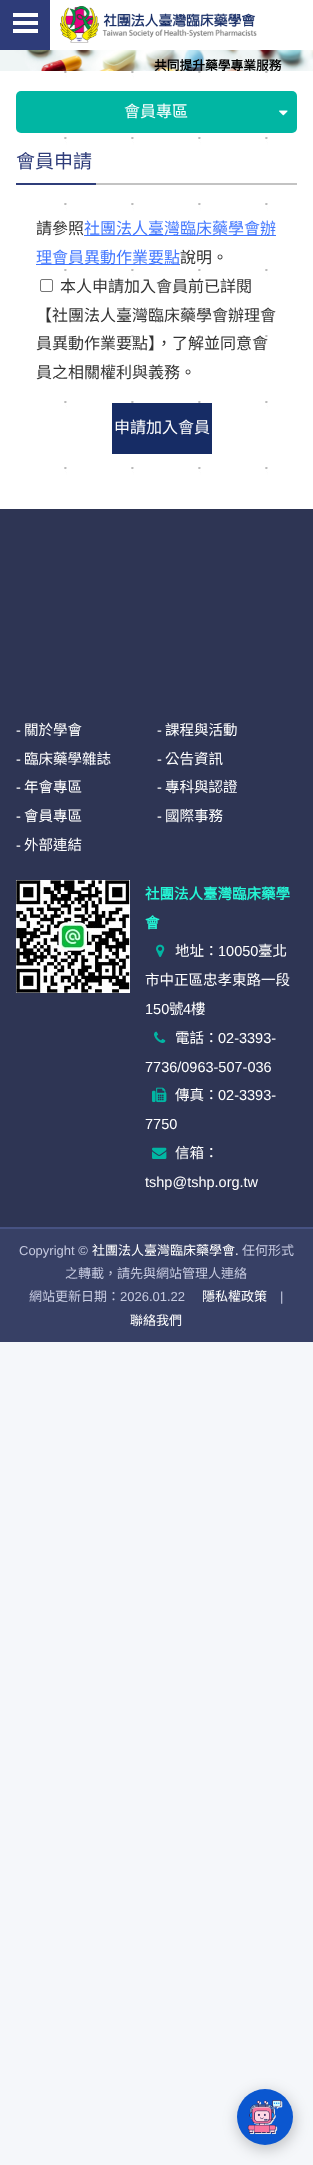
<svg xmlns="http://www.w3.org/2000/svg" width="313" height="2165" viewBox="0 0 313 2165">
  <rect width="100%" height="100%" fill="#f5f7fa"/>
  <path d="M50 0h263v50H50z" fill="#fff"/>
  <path d="M0 0h50v50H0z" fill="#2e3c79"/>
  <path d="M13 13h25v4H13z" fill="#fff"/>
  <path d="M13 21h25v4H13z" fill="#fff"/>
  <path d="M13 29h25v4H13z" fill="#fff"/>
  <image x="60" y="6" width="197" height="37" href="img/1.png"/>
  <image x="0" y="50" width="313" height="21" href="img/2.png"/>
  <image x="0" y="71" width="313" height="438" href="img/3.png"/>
  <rect x="16" y="91" width="281" height="42" rx="5" fill="#01b6a3"/>
  <image x="279" y="110" width="9" height="6" href="img/4.png"/>
  <path d="M96 183h201v2H96z" fill="#c3c3c3"/>
  <path d="M16 183h80v2H16z" fill="#2f3d7a"/>
  <path d="M84 235h192v1H84z" fill="#4277ff"/>
  <path d="M36 264h144v1H36z" fill="#4277ff"/>
  <rect x="40.5" y="279.5" width="12" height="12" rx="1.5" fill="none" stroke="#767676"/>
  <path d="M112 403h100v51H112z" fill="#162c65"/>
  <path d="M0 509h313v718H0z" fill="#2e3554"/>
  <image x="16" y="880" width="114" height="113" href="img/5.png"/>
  <image x="156" y="944" width="9" height="13" href="img/6.png"/>
  <image x="154" y="1031" width="12" height="12" href="img/7.png"/>
  <image x="152" y="1087" width="15" height="16" href="img/8.png"/>
  <image x="152" y="1147" width="15" height="12" href="img/9.png"/>
  <path d="M0 1229h313v113H0z" fill="#374065"/>
  <path d="M0 1227h313v2H0z" fill="#475282"/>
  <rect x="238" y="2093" width="56" height="56" rx="28" fill="#0000003d" filter="blur(7.5px)"/>
  <circle cx="265" cy="2117" r="28" fill="#0b57d0"/>
  <image x="247" y="2100" width="36" height="35" href="img/10.png"/>
  <text x="154" y="70" font-family="Noto Sans CJK TC" font-size="12.75" font-weight="bold" fill="#000">共同提升藥學專業服務</text>
  <text x="124" y="117" font-family="Noto Sans CJK TC" font-size="16" fill="#fff">會員專區</text>
  <text x="16" y="168" font-family="Noto Sans CJK TC" font-size="19" fill="#2f3d7a">會員申請</text>
  <text x="36" y="234" font-family="Noto Sans CJK TC" font-size="16" fill="#333">請參照</text>
  <g font-family="Noto Sans CJK TC" font-size="16" fill="#4277ff">
    <text x="84" y="234">社團法人臺灣臨床藥學會辦</text>
    <text x="36" y="263">理會員異動作業要點</text>
  </g>
  <g font-family="Noto Sans CJK TC" font-size="16" fill="#333">
    <text x="180" y="263">說明。</text>
    <text x="60" y="292">本人申請加入會員前已詳閱</text>
    <text x="36" y="321">【社團法人臺灣臨床藥學會辦理會</text>
    <text x="36" y="349">員異動作業要點】，了解並同意會</text>
    <text x="36" y="378">員之相關權利與義務。</text>
  </g>
  <text x="114" y="433" font-family="Noto Sans CJK TC" font-size="16" fill="#fff">申請加入會員</text>
  <text x="16" y="735" font-family="Liberation Sans" font-size="14.5" fill="#fff">-</text>
  <text x="24" y="735" font-family="Noto Sans CJK TC" font-size="14.5" fill="#fff">關於學會</text>
  <text x="157" y="735" font-family="Liberation Sans" font-size="14.5" fill="#fff">-</text>
  <text x="165" y="735" font-family="Noto Sans CJK TC" font-size="14.5" fill="#fff">課程與活動</text>
  <text x="16" y="764" font-family="Liberation Sans" font-size="14.5" fill="#fff">-</text>
  <text x="24" y="764" font-family="Noto Sans CJK TC" font-size="14.5" fill="#fff">臨床藥學雜誌</text>
  <text x="157" y="764" font-family="Liberation Sans" font-size="14.5" fill="#fff">-</text>
  <text x="165" y="764" font-family="Noto Sans CJK TC" font-size="14.5" fill="#fff">公告資訊</text>
  <text x="16" y="792" font-family="Liberation Sans" font-size="14.5" fill="#fff">-</text>
  <text x="24" y="792" font-family="Noto Sans CJK TC" font-size="14.5" fill="#fff">年會專區</text>
  <text x="157" y="792" font-family="Liberation Sans" font-size="14.5" fill="#fff">-</text>
  <text x="165" y="792" font-family="Noto Sans CJK TC" font-size="14.5" fill="#fff">專科與認證</text>
  <text x="16" y="821" font-family="Liberation Sans" font-size="14.5" fill="#fff">-</text>
  <text x="24" y="821" font-family="Noto Sans CJK TC" font-size="14.5" fill="#fff">會員專區</text>
  <text x="157" y="821" font-family="Liberation Sans" font-size="14.5" fill="#fff">-</text>
  <text x="165" y="821" font-family="Noto Sans CJK TC" font-size="14.5" fill="#fff">國際事務</text>
  <text x="16" y="850" font-family="Liberation Sans" font-size="14.5" fill="#fff">-</text>
  <text x="24" y="850" font-family="Noto Sans CJK TC" font-size="14.5" fill="#fff">外部連結</text>
  <g font-family="Noto Sans CJK TC" font-size="14.5" font-weight="bold" fill="#24f6d6">
    <text x="145" y="899">社團法人臺灣臨床藥學</text>
    <text x="145" y="928">會</text>
  </g>
  <text x="175" y="956" font-family="Noto Sans CJK TC" font-size="14.5" fill="#fff">地址：</text>
  <text x="218" y="956" font-family="Liberation Sans" font-size="14.5" fill="#fff">10050</text>
  <g font-family="Noto Sans CJK TC" font-size="14.5" fill="#fff">
    <text x="258" y="956">臺北</text>
    <text x="145" y="985">市中正區忠孝東路一段</text>
  </g>
  <text x="145" y="1014" font-family="Liberation Sans" font-size="14.5" fill="#fff">150</text>
  <text x="169" y="1014" font-family="Noto Sans CJK TC" font-size="14.5" fill="#fff">號</text>
  <text x="183" y="1014" font-family="Liberation Sans" font-size="14.5" fill="#fff">4</text>
  <g font-family="Noto Sans CJK TC" font-size="14.5" fill="#fff">
    <text x="191" y="1014">樓</text>
    <text x="175" y="1043">電話：</text>
  </g>
  <g font-family="Liberation Sans" font-size="14.5" fill="#fff">
    <text x="218" y="1043">02-3393-</text>
    <text x="145" y="1072">7736/0963-507-036</text>
  </g>
  <text x="175" y="1100" font-family="Noto Sans CJK TC" font-size="14.5" fill="#fff">傳真：</text>
  <g font-family="Liberation Sans" font-size="14.5" fill="#fff">
    <text x="218" y="1100">02-3393-</text>
    <text x="145" y="1129">7750</text>
  </g>
  <text x="175" y="1158" font-family="Noto Sans CJK TC" font-size="14.5" fill="#fff">信箱：</text>
  <text x="145" y="1187" font-family="Liberation Sans" font-size="14.5" fill="#fff">tshp@tshp.org.tw</text>
  <text x="19" y="1255" font-family="Liberation Sans" font-size="13" fill="#c6cae0">Copyright ©</text>
  <text x="92" y="1255" font-family="Noto Sans CJK TC" font-size="13" fill="#fff">社團法人臺灣臨床藥學會</text>
  <text x="235" y="1255" font-family="Liberation Sans" font-size="13" fill="#fff">.</text>
  <g font-family="Noto Sans CJK TC" font-size="13" fill="#c6cae0">
    <text x="242" y="1255">任何形式</text>
    <text x="65" y="1278">之轉載，請先與網站管理人連絡</text>
    <text x="29" y="1301">網站更新日期：</text>
  </g>
  <text x="120" y="1301" font-family="Liberation Sans" font-size="13" fill="#c6cae0">2026.01.22</text>
  <text x="202" y="1301" font-family="Noto Sans CJK TC" font-size="13" fill="#fff">隱私權政策</text>
  <text x="280" y="1301" font-family="Liberation Sans" font-size="13" fill="#c6cae0">|</text>
  <text x="130" y="1325" font-family="Noto Sans CJK TC" font-size="13" fill="#fff">聯絡我們</text>
</svg>
